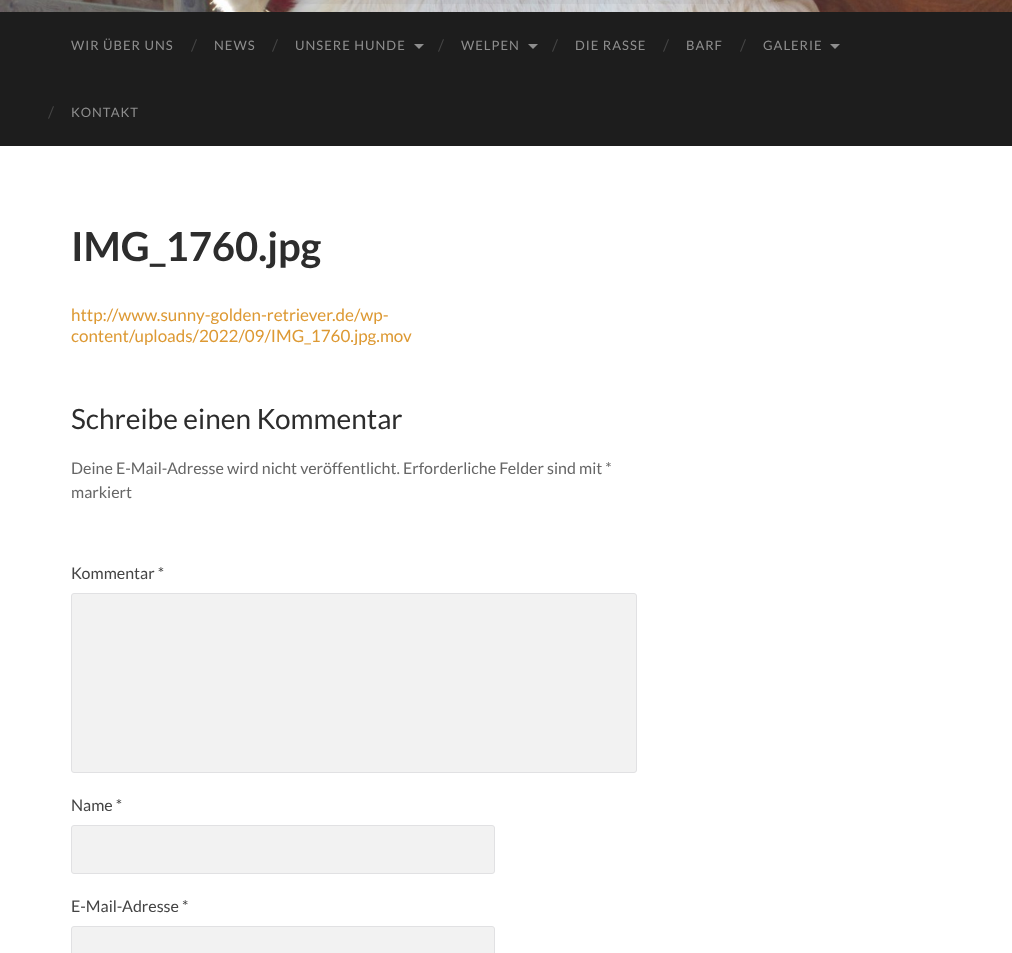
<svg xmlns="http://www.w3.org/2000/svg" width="1012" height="953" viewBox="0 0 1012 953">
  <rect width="100%" height="100%" fill="#fff"/>
  <image x="0" y="0" width="1012" height="12" href="img/1.png"/>
  <path d="M282 0h448v4H282z" fill="#1d1d1d0a"/>
  <path d="M0 12h1012v134H0z" fill="#1d1d1d"/>
  <path d="M414 44H424L419 49Z" fill="#8e8e8e"/>
  <path d="M528 44H538L533 49Z" fill="#8e8e8e"/>
  <path d="M830 44H840L835 49Z" fill="#8e8e8e"/>
  <rect x="71.5" y="593.5" width="565" height="179" rx="2.5" fill="#f2f2f2" stroke="#e1e1e3"/>
  <rect x="71.5" y="825.5" width="423" height="48" rx="2.5" fill="#f2f2f2" stroke="#e1e1e3"/>
  <rect x="71.5" y="926.5" width="423" height="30" rx="2.5" fill="#f2f2f2" stroke="#e1e1e3"/>
  <text x="71" y="50" font-family="Lato" font-size="13" letter-spacing="1" fill="#8e8e8e">WIR ÜBER UNS</text>
  <text x="191" y="51" font-family="Lato" font-size="16" fill="#444">/</text>
  <text x="214" y="50" font-family="Lato" font-size="13" letter-spacing="1" fill="#8e8e8e">NEWS</text>
  <text x="272" y="51" font-family="Lato" font-size="16" fill="#444">/</text>
  <text x="295" y="50" font-family="Lato" font-size="13" letter-spacing="1" fill="#8e8e8e">UNSERE HUNDE</text>
  <text x="438" y="51" font-family="Lato" font-size="16" fill="#444">/</text>
  <text x="461" y="50" font-family="Lato" font-size="13" letter-spacing="1" fill="#8e8e8e">WELPEN</text>
  <text x="552" y="51" font-family="Lato" font-size="16" fill="#444">/</text>
  <text x="575" y="50" font-family="Lato" font-size="13" letter-spacing="1" fill="#8e8e8e">DIE RASSE</text>
  <text x="663" y="51" font-family="Lato" font-size="16" fill="#444">/</text>
  <text x="686" y="50" font-family="Lato" font-size="13" letter-spacing="1" fill="#8e8e8e">BARF</text>
  <text x="740" y="51" font-family="Lato" font-size="16" fill="#444">/</text>
  <text x="763" y="50" font-family="Lato" font-size="13" letter-spacing="1" fill="#8e8e8e">GALERIE</text>
  <text x="48" y="118" font-family="Lato" font-size="16" fill="#444">/</text>
  <text x="71" y="117" font-family="Lato" font-size="13" letter-spacing="1" fill="#8e8e8e">KONTAKT</text>
  <text x="71" y="261" font-family="Lato" font-size="40" font-weight="bold" fill="#2d2d2d">IMG_1760.jpg</text>
  <g font-family="Lato" font-size="17" fill="#d93">
    <text x="71" y="321">http://www.sunny-golden-retriever.de/wp-</text>
    <text x="71" y="342">content/uploads/2022/09/IMG_1760.jpg.mov</text>
  </g>
  <text x="71" y="429" font-family="Lato" font-size="28" fill="#2d2d2d">Schreibe einen Kommentar</text>
  <g font-family="Lato" font-size="16" fill="#666">
    <text x="71" y="474">Deine E-Mail-Adresse wird nicht veröffentlicht. Erforderliche Felder sind mit *</text>
    <text x="71" y="498">markiert</text>
  </g>
  <g font-family="Lato" font-size="16" fill="#444">
    <text x="71" y="579">Kommentar *</text>
    <text x="71" y="811">Name *</text>
    <text x="71" y="912">E-Mail-Adresse *</text>
  </g>
</svg>
